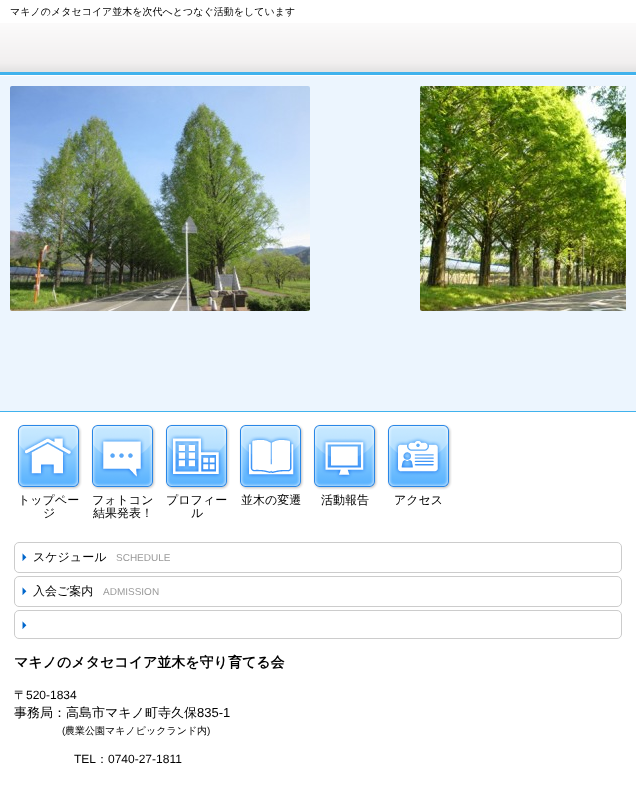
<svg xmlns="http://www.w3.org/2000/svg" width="636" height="796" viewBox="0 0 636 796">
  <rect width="100%" height="100%" fill="#fff"/>
  <image x="0" y="23" width="636" height="52" href="img/1.png"/>
  <path d="M0 76h636v335H0z" fill="#ecf5fe"/>
  <path d="M0 411h636v1H0z" fill="#40b2ed"/>
  <image x="10" y="86" width="300" height="225" href="img/2.png"/>
  <image x="420" y="86" width="206" height="225" href="img/3.png"/>
  <image x="17" y="424" width="65" height="66" href="img/4.png"/>
  <image x="91" y="424" width="65" height="66" href="img/5.png"/>
  <image x="165" y="424" width="65" height="66" href="img/6.png"/>
  <image x="239" y="424" width="65" height="66" href="img/7.png"/>
  <image x="313" y="424" width="65" height="66" href="img/8.png"/>
  <image x="387" y="424" width="65" height="66" href="img/9.png"/>
  <rect x="14.5" y="542.5" width="607" height="30" rx="4.5" fill="none" stroke="#ccc"/>
  <image x="22" y="553" width="5" height="8" href="img/10.png"/>
  <rect x="14.5" y="576.5" width="607" height="30" rx="4.5" fill="none" stroke="#ccc"/>
  <image x="22" y="587" width="5" height="8" href="img/10.png"/>
  <rect x="14.5" y="610.5" width="607" height="28" rx="4.5" fill="none" stroke="#ccc"/>
  <image x="22" y="621" width="5" height="8" href="img/10.png"/>
  <text x="10" y="15" font-family="WenQuanYi Zen Hei" font-size="10" font-weight="500" fill="#000">マキノのメタセコイア並木を次代へとつなぐ活動をしています</text>
  <g font-family="WenQuanYi Zen Hei" font-size="12" font-weight="500" fill="#000">
    <text x="18" y="504">トップペー</text>
    <text x="43" y="517">ジ</text>
    <text x="92" y="504">フォトコン</text>
    <text x="93" y="517">結果発表！</text>
    <text x="166" y="504">プロフィー</text>
    <text x="191" y="517">ル</text>
    <text x="241" y="504">並木の変遷</text>
    <text x="321" y="504">活動報告</text>
    <text x="394" y="504">アクセス</text>
    <text x="33" y="561">スケジュール</text>
  </g>
  <text x="116" y="561" font-family="Liberation Sans" font-size="10" fill="#999">SCHEDULE</text>
  <text x="33" y="595" font-family="WenQuanYi Zen Hei" font-size="12" font-weight="500" fill="#000">入会ご案内</text>
  <text x="103" y="595" font-family="Liberation Sans" font-size="10" fill="#999">ADMISSION</text>
  <text x="14" y="667" font-family="WenQuanYi Zen Hei" font-size="14" font-weight="bold" fill="#000">マキノのメタセコイア並木を守り育てる会</text>
  <text x="14" y="699" font-family="WenQuanYi Zen Hei" font-size="12" font-weight="500" fill="#000">〒</text>
  <text x="26" y="699" font-family="Liberation Sans" font-size="12" fill="#000">520-1834</text>
  <text x="14" y="717" font-family="WenQuanYi Zen Hei" font-size="13" font-weight="500" fill="#000">事務局：高島市マキノ町寺久保</text>
  <text x="197" y="717" font-family="Liberation Sans" font-size="13" fill="#000">835-1</text>
  <text x="62" y="734" font-family="Liberation Sans" font-size="10" fill="#000">(</text>
  <text x="65" y="734" font-family="WenQuanYi Zen Hei" font-size="10" font-weight="500" fill="#000">農業公園マキノピックランド内</text>
  <text x="207" y="734" font-family="Liberation Sans" font-size="10" fill="#000">)</text>
  <text x="74" y="763" font-family="Liberation Sans" font-size="12" fill="#000">TEL</text>
  <text x="96" y="763" font-family="WenQuanYi Zen Hei" font-size="12" font-weight="500" fill="#000">：</text>
  <text x="108" y="763" font-family="Liberation Sans" font-size="12" fill="#000">0740-27-1811</text>
</svg>
